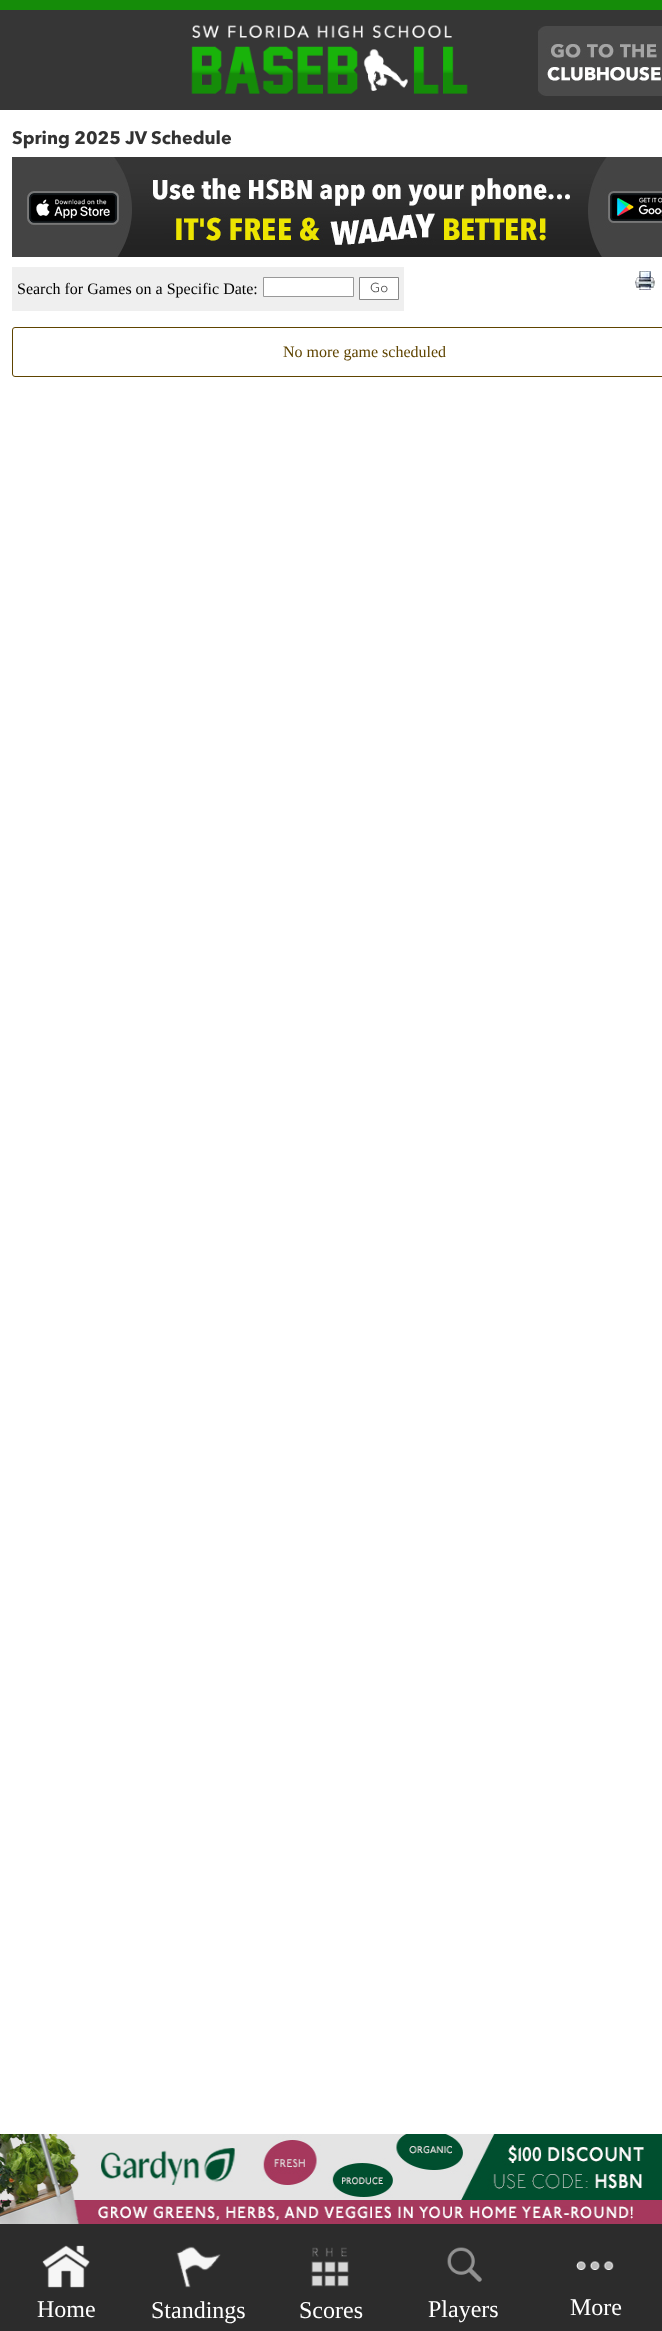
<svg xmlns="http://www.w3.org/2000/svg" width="662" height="2331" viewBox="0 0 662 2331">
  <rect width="100%" height="100%" fill="#fff"/>
  <path d="M0 10h662v100H0z" fill="#363636"/>
  <path d="M0 0h662v10H0z" fill="#158c09"/>
  <image x="191" y="25" width="277" height="69" href="img/1.png"/>
  <image x="538" y="26" width="124" height="70" href="img/2.png"/>
  <image x="12" y="157" width="650" height="100" href="img/3.png"/>
  <path d="M12 267h392v44H12z" fill="#efefef"/>
  <path d="M263.5 277.5h90v19H263.5z" fill="#fff" stroke="#999"/>
  <path d="M359.5 277.5h39v22H359.5z" fill="#fff" stroke="#888"/>
  <image x="635" y="271" width="20" height="19" href="img/4.png"/>
  <rect x="12.5" y="327.5" width="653" height="49" rx="2.5" fill="none" stroke="#5f4400"/>
  <path d="M0 2224h662v107H0z" fill="#2c2c2c"/>
  <image x="0" y="2134" width="662" height="90" href="img/5.png"/>
  <image x="42" y="2245" width="48" height="43" href="img/6.png"/>
  <image x="176" y="2246" width="45" height="42" href="img/7.png"/>
  <image x="311" y="2247" width="38" height="40" href="img/8.png"/>
  <image x="447" y="2247" width="35" height="35" href="img/9.png"/>
  <image x="576" y="2261" width="38" height="9" href="img/10.png"/>
  <text x="12" y="144" font-family="Avenir Next" font-size="18" font-weight="bold" fill="#333">Spring 2025 JV Schedule</text>
  <text x="17" y="294" font-family="Liberation Serif" font-size="16" fill="#000">Search for Games on a Specific Date:</text>
  <text x="370" y="292" font-family="Avenir Next" font-size="13" fill="#555">Go</text>
  <text x="283" y="357" font-family="Liberation Serif" font-size="16" fill="#5f4400">No more game scheduled</text>
  <g font-family="Liberation Serif" font-size="24" fill="#fff">
    <text x="37" y="2317">Home</text>
    <text x="151" y="2318">Standings</text>
    <text x="299" y="2318">Scores</text>
    <text x="428" y="2317">Players</text>
    <text x="570" y="2315">More</text>
  </g>
</svg>
